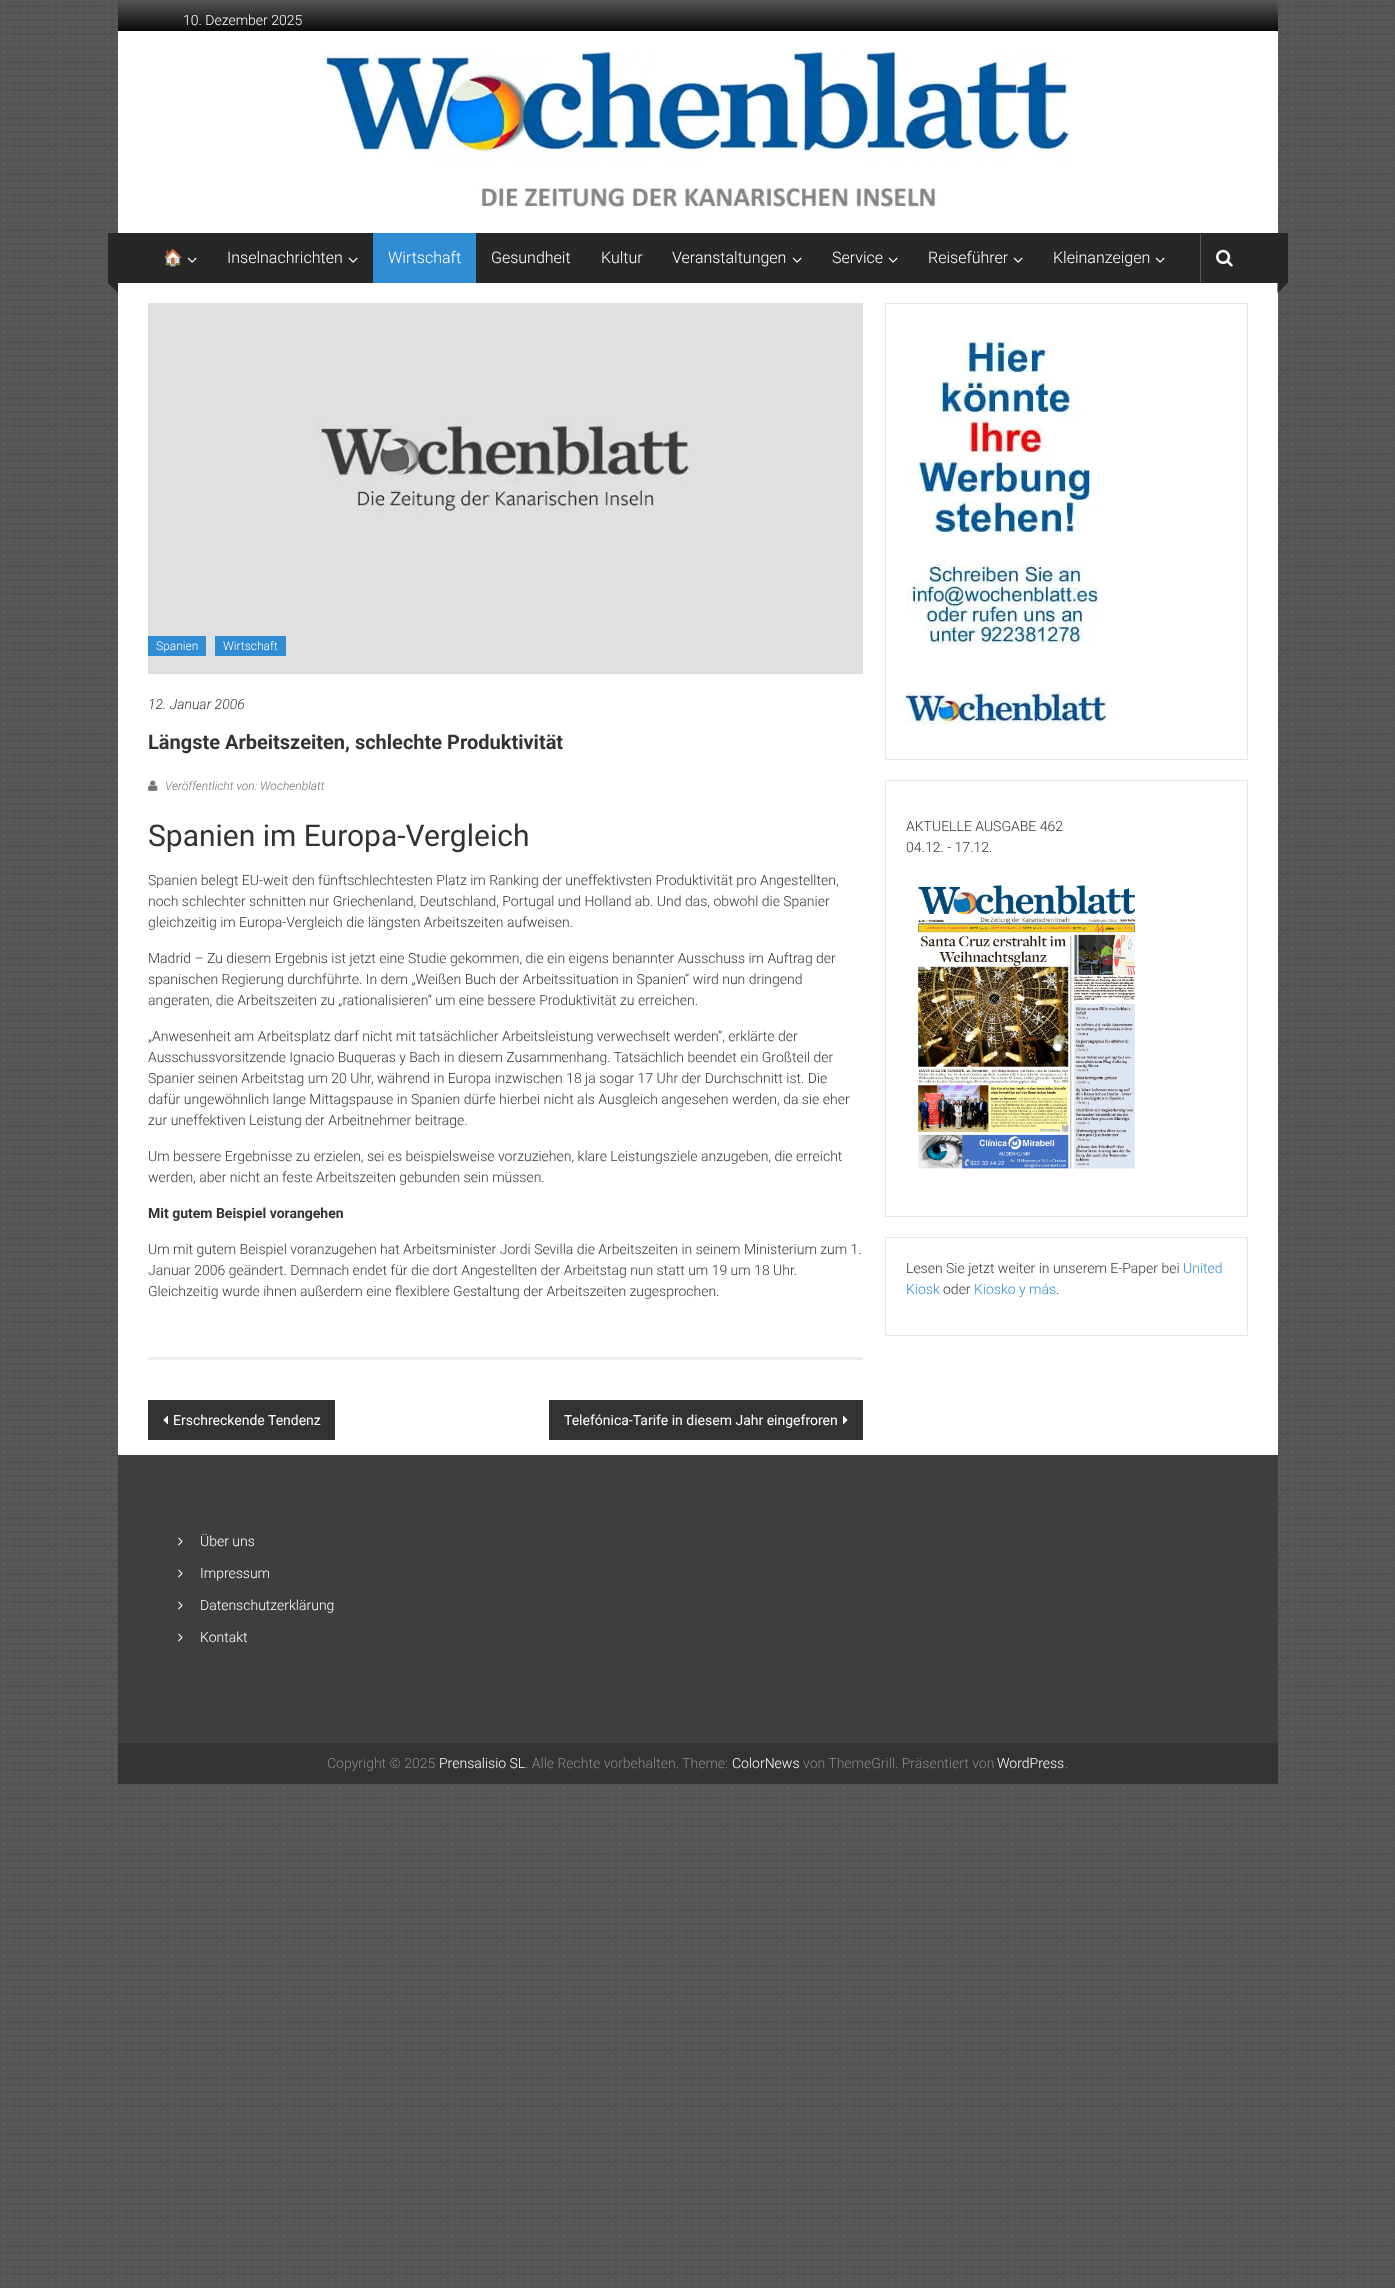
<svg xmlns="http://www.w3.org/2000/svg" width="1395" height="2288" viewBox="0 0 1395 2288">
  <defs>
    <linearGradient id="g1" gradientUnits="userSpaceOnUse" x1="698" y1="0" x2="698" y2="31"><stop offset="0" stop-color="#565656"/><stop offset="1" stop-color="#0a0a0a"/></linearGradient>
  </defs>
  <rect width="100%" height="100%" fill="#fff"/>
  <image x="0" y="0" width="1395" height="2288" href="img/1.png"/>
  <path d="M118 31h1160v1424H118z" fill="#fff"/>
  <path d="M118 0h1160v31H118z" fill="url(#g1)"/>
  <image x="323" y="51" width="748" height="156" href="img/2.png"/>
  <path d="M108 233h1170v50H108z" fill="#272727"/>
  <image x="187" y="257" width="10" height="6" href="img/3.png"/>
  <image x="348" y="257" width="10" height="6" href="img/3.png"/>
  <path d="M373 233h103v50H373z" fill="#308dd3"/>
  <image x="792" y="257" width="10" height="6" href="img/3.png"/>
  <image x="888" y="257" width="10" height="6" href="img/3.png"/>
  <image x="1013" y="257" width="10" height="6" href="img/3.png"/>
  <image x="1155" y="257" width="10" height="6" href="img/3.png"/>
  <path d="M1200 233h1v50H1200z" fill="#525252"/>
  <image x="1216" y="249" width="17" height="18" href="img/4.png"/>
  <path d="M118 273V293L108 283Z" fill="#272727"/>
  <path d="M1277.5 293V273L1287.5 283Z" fill="#272727"/>
  <path d="M1278 233h10v50H1278z" fill="#272727"/>
  <path d="M148 1357h715v3H148z" fill="#eee"/>
  <image x="148" y="303" width="715" height="371" href="img/5.png"/>
  <path d="M148 636h58v20H148z" fill="#308dd3"/>
  <path d="M215 636h71v20H215z" fill="#308dd3"/>
  <image x="148" y="780" width="10" height="11" href="img/6.png"/>
  <path d="M148 1400h187v40H148z" fill="#333"/>
  <image x="163" y="1416" width="5" height="8" href="img/7.png"/>
  <path d="M549 1400h314v40H549z" fill="#333"/>
  <image x="843" y="1416" width="5" height="8" href="img/8.png"/>
  <path d="M885.5 303.5h362v456H885.5z" fill="none" stroke="#e6e6e6"/>
  <image x="906" y="339" width="200" height="385" href="img/9.png"/>
  <path d="M885.5 780.5h362v436H885.5z" fill="none" stroke="#e6e6e6"/>
  <image x="918" y="885" width="218" height="284" href="img/10.png"/>
  <path d="M885.5 1237.5h362v98H885.5z" fill="none" stroke="#e6e6e6"/>
  <path d="M118 1455h1160v288H118z" fill="#3e3e3e"/>
  <image x="178" y="1537" width="5" height="9" href="img/11.png"/>
  <image x="178" y="1569" width="5" height="9" href="img/11.png"/>
  <image x="178" y="1601" width="5" height="9" href="img/11.png"/>
  <image x="178" y="1633" width="5" height="9" href="img/11.png"/>
  <path d="M118 1743h1160v41H118z" fill="#333"/>
  <text x="183" y="25" font-family="Roboto" font-size="14" font-weight="300" fill="#fff">10. Dezember 2025</text>
  <text x="163" y="263" font-family="Noto Color Emoji" font-size="16" fill="#fff">🏠</text>
  <g font-family="Roboto" font-size="16" font-weight="300" fill="#fff">
    <text x="227" y="263">Inselnachrichten</text>
    <text x="388" y="263">Wirtschaft</text>
    <text x="491" y="263">Gesundheit</text>
    <text x="601" y="263">Kultur</text>
    <text x="672" y="263">Veranstaltungen</text>
    <text x="832" y="263">Service</text>
    <text x="928" y="263">Reiseführer</text>
    <text x="1053" y="263">Kleinanzeigen</text>
  </g>
  <g font-family="Roboto" font-size="12" font-weight="300" fill="#fff">
    <text x="156" y="650">Spanien</text>
    <text x="223" y="650">Wirtschaft</text>
  </g>
  <text x="148" y="709" font-family="Roboto" font-size="14" font-weight="300" font-style="italic" fill="#333">12. Januar 2006</text>
  <text x="148" y="749" font-family="Roboto" font-size="20" font-weight="bold" fill="#333">Längste Arbeitszeiten, schlechte Produktivität</text>
  <text x="165" y="790" font-family="Roboto" font-size="12" font-weight="300" font-style="italic" fill="#767272">Veröffentlicht von: Wochenblatt</text>
  <text x="148" y="846" font-family="Roboto" font-size="30" fill="#333">Spanien im Europa-Vergleich</text>
  <g font-family="Roboto" font-size="14" font-weight="300" fill="#333">
    <text x="148" y="885">Spanien belegt EU-weit den fünftschlechtesten Platz im Ranking der uneffektivsten Produktivität pro Angestellten,</text>
    <text x="148" y="906">noch schlechter schnitten nur Griechenland, Deutschland, Portugal und Holland ab. Und das, obwohl die Spanier</text>
    <text x="148" y="927">gleichzeitig im Europa-Vergleich die längsten Arbeitszeiten aufweisen.</text>
    <text x="148" y="963">Madrid – Zu diesem Ergebnis ist jetzt eine Studie gekommen, die ein eigens benannter Ausschuss im Auftrag der</text>
    <text x="148" y="984">spanischen Regierung durchführte. In dem „Weißen Buch der Arbeitssituation in Spanien“ wird nun dringend</text>
    <text x="148" y="1005">angeraten, die Arbeitszeiten zu „rationalisieren“ um eine bessere Produktivität zu erreichen.</text>
    <text x="148" y="1041">„Anwesenheit am Arbeitsplatz darf nicht mit tatsächlicher Arbeitsleistung verwechselt werden“, erklärte der</text>
    <text x="148" y="1062">Ausschussvorsitzende Ignacio Buqueras y Bach in diesem Zusammenhang. Tatsächlich beendet ein Großteil der</text>
    <text x="148" y="1083">Spanier seinen Arbeitstag um 20 Uhr, während in Europa inzwischen 18 ja sogar 17 Uhr der Durchschnitt ist. Die</text>
    <text x="148" y="1104">dafür ungewöhnlich lange Mittagspause in Spanien dürfe hierbei nicht als Ausgleich angesehen werden, da sie eher</text>
    <text x="148" y="1125">zur uneffektiven Leistung der Arbeitnehmer beitrage.</text>
    <text x="148" y="1161">Um bessere Ergebnisse zu erzielen, sei es beispielsweise vorzuziehen, klare Leistungsziele anzugeben, die erreicht</text>
    <text x="148" y="1182">werden, aber nicht an feste Arbeitszeiten gebunden sein müssen.</text>
  </g>
  <text x="148" y="1218" font-family="Roboto" font-size="14" font-weight="bold" fill="#333">Mit gutem Beispiel vorangehen</text>
  <g font-family="Roboto" font-size="14" font-weight="300" fill="#333">
    <text x="148" y="1254">Um mit gutem Beispiel voranzugehen hat Arbeitsminister Jordi Sevilla die Arbeitszeiten in seinem Ministerium zum 1.</text>
    <text x="148" y="1275">Januar 2006 geändert. Demnach endet für die dort Angestellten der Arbeitstag nun statt um 19 um 18 Uhr.</text>
    <text x="148" y="1296">Gleichzeitig wurde ihnen außerdem eine flexiblere Gestaltung der Arbeitszeiten zugesprochen.</text>
  </g>
  <g font-family="Roboto" font-size="14" fill="#fff">
    <text x="173" y="1425">Erschreckende Tendenz</text>
    <text x="564" y="1425">Telefónica-Tarife in diesem Jahr eingefroren</text>
  </g>
  <g font-family="Roboto" font-size="14" font-weight="300" fill="#333">
    <text x="906" y="831">AKTUELLE AUSGABE 462</text>
    <text x="906" y="852">04.12. - 17.12.</text>
    <text x="906" y="1273">Lesen Sie jetzt weiter in unserem E-Paper bei</text>
  </g>
  <g font-family="Roboto" font-size="14" font-weight="300" fill="#308dd3">
    <text x="1183" y="1273">United</text>
    <text x="906" y="1294">Kiosk</text>
  </g>
  <text x="943" y="1294" font-family="Roboto" font-size="14" font-weight="300" fill="#333">oder</text>
  <text x="974" y="1294" font-family="Roboto" font-size="14" font-weight="300" fill="#308dd3">Kiosko y más</text>
  <text x="1056" y="1294" font-family="Roboto" font-size="14" font-weight="300" fill="#333">.</text>
  <g font-family="Roboto" font-size="14" font-weight="300" fill="#fff">
    <text x="200" y="1546">Über uns</text>
    <text x="200" y="1578">Impressum</text>
    <text x="200" y="1610">Datenschutzerklärung</text>
    <text x="200" y="1642">Kontakt</text>
  </g>
  <text x="327" y="1768" font-family="Roboto" font-size="14" font-weight="300" fill="#8c8c8c">Copyright © 2025</text>
  <text x="439" y="1768" font-family="Roboto" font-size="14" font-weight="300" fill="#fff">Prensalisio SL</text>
  <text x="525" y="1768" font-family="Roboto" font-size="14" font-weight="300" fill="#8c8c8c">. Alle Rechte vorbehalten. Theme:</text>
  <text x="732" y="1768" font-family="Roboto" font-size="14" font-weight="300" fill="#fff">ColorNews</text>
  <text x="803" y="1768" font-family="Roboto" font-size="14" font-weight="300" fill="#8c8c8c">von ThemeGrill. Präsentiert von</text>
  <text x="997" y="1768" font-family="Roboto" font-size="14" font-weight="300" fill="#fff">WordPress</text>
  <text x="1065" y="1768" font-family="Roboto" font-size="14" font-weight="300" fill="#8c8c8c">.</text>
</svg>
